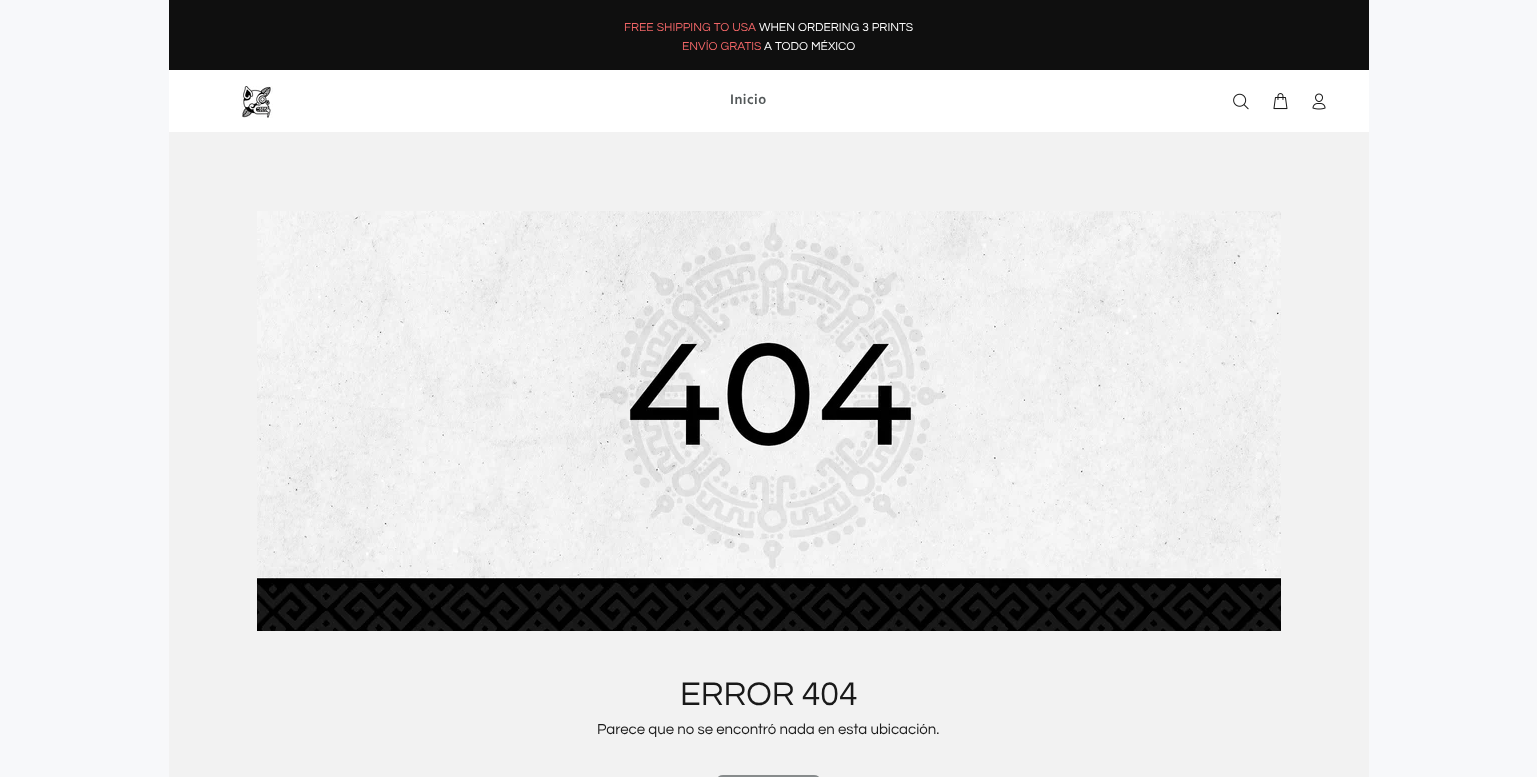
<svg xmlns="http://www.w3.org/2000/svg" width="1537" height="777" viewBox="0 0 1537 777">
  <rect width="100%" height="100%" fill="#f7f8fa"/>
  <path d="M169 70h1200v62H169z" fill="#fff"/>
  <path d="M169 0h1200v70H169z" fill="#0f0f0f"/>
  <image x="241" y="86" width="32" height="32" href="img/1.png"/>
  <image x="1233" y="93" width="16" height="17" href="img/2.png"/>
  <image x="1273" y="93" width="15" height="17" href="img/3.png"/>
  <image x="1312" y="93" width="14" height="17" href="img/4.png"/>
  <path d="M169 132h1200v645H169z" fill="#f2f2f2"/>
  <image x="257" y="211" width="1024" height="420" href="img/5.png"/>
  <rect x="717" y="775" width="103" height="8" rx="6" fill="#878b8c"/>
  <text x="624" y="31" word-spacing="0.5" font-family="Questrial" font-size="12" fill="#f16667">FREE SHIPPING TO USA</text>
  <text x="759" y="31" word-spacing="0.5" font-family="Questrial" font-size="12" fill="#fff">WHEN ORDERING 3 PRINTS</text>
  <text x="682" y="50" word-spacing="0.5" font-family="Questrial" font-size="12" fill="#f16667">ENVÍO GRATIS</text>
  <text x="764" y="50" word-spacing="0.5" font-family="Questrial" font-size="12" fill="#fff">A TODO MÉXICO</text>
  <text x="730" y="104" font-family="Hind" font-size="14" font-weight="600" letter-spacing="0.5" fill="#535859">Inicio</text>
  <text x="680" y="705" font-family="Questrial" font-size="34" fill="#191919">ERROR 404</text>
  <text x="597" y="734" font-family="Questrial" font-size="15" fill="#191919">Parece que no se encontró nada en esta ubicación.</text>
</svg>
